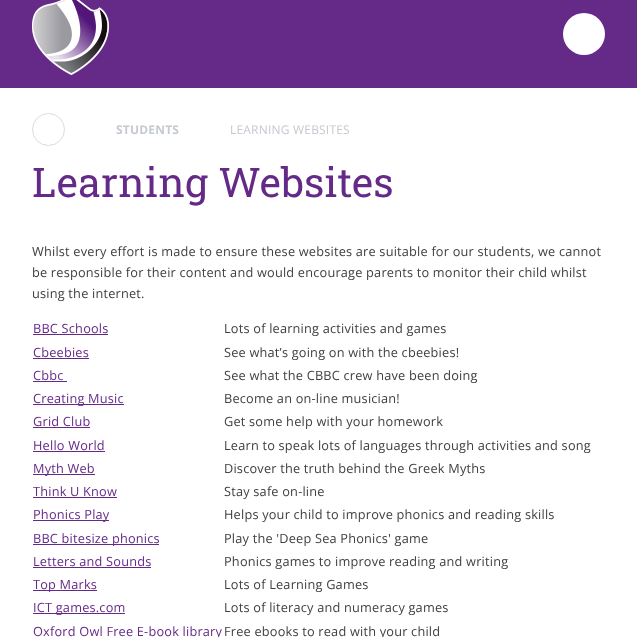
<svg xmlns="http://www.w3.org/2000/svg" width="637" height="637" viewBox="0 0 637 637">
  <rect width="100%" height="100%" fill="#fff"/>
  <path d="M0 0h637v88H0z" fill="#652a88"/>
  <image x="32" y="0" width="77" height="75" href="img/1.png"/>
  <circle cx="584" cy="34" r="21" fill="#fff"/>
  <circle cx="48.5" cy="129.5" r="16" fill="none" stroke="#d7dce3"/>
  <path d="M33 334h75v1H33z" fill="#652a88"/>
  <path d="M33 358h56v1H33z" fill="#652a88"/>
  <path d="M33 381h34v1H33z" fill="#652a88"/>
  <path d="M33 404h91v1H33z" fill="#652a88"/>
  <path d="M33 427h57v1H33z" fill="#652a88"/>
  <path d="M33 451h72v1H33z" fill="#652a88"/>
  <path d="M33 474h62v1H33z" fill="#652a88"/>
  <path d="M33 497h84v1H33z" fill="#652a88"/>
  <path d="M33 520h76v1H33z" fill="#652a88"/>
  <path d="M33 544h126v1H33z" fill="#652a88"/>
  <path d="M33 567h118v1H33z" fill="#652a88"/>
  <path d="M33 590h64v1H33z" fill="#652a88"/>
  <path d="M33 613h92v1H33z" fill="#652a88"/>
  <text x="116" y="134" font-family="Open Sans" font-size="12" font-weight="bold" letter-spacing="0.2" fill="#c5c9d0">STUDENTS</text>
  <text x="230" y="134" font-family="Open Sans" font-size="12" letter-spacing="0.2" fill="#c5c9d0">LEARNING WEBSITES</text>
  <text x="32" y="197" font-family="Roboto Slab" font-size="40.75" letter-spacing="0.2" fill="#652a88">Learning Websites</text>
  <g font-family="Open Sans" font-size="12.75" letter-spacing="0.2" fill="#404040">
    <text x="32" y="256">Whilst every effort is made to ensure these websites are suitable for our students, we cannot</text>
    <text x="32" y="277">be responsible for their content and would encourage parents to monitor their child whilst</text>
    <text x="32" y="298">using the internet.</text>
  </g>
  <text x="33" y="333" font-family="Open Sans" font-size="12.75" letter-spacing="0.2" fill="#652a88">BBC Schools</text>
  <text x="224" y="333" font-family="Open Sans" font-size="12.75" letter-spacing="0.2" fill="#404040">Lots of learning activities and games</text>
  <text x="33" y="357" font-family="Open Sans" font-size="12.75" letter-spacing="0.2" fill="#652a88">Cbeebies</text>
  <text x="224" y="357" font-family="Open Sans" font-size="12.75" letter-spacing="0.2" fill="#404040">See what’s going on with the cbeebies!</text>
  <text x="33" y="380" font-family="Open Sans" font-size="12.75" letter-spacing="0.2" fill="#652a88">Cbbc</text>
  <text x="224" y="380" font-family="Open Sans" font-size="12.75" letter-spacing="0.2" fill="#404040">See what the CBBC crew have been doing</text>
  <text x="33" y="403" font-family="Open Sans" font-size="12.75" letter-spacing="0.2" fill="#652a88">Creating Music</text>
  <text x="224" y="403" font-family="Open Sans" font-size="12.75" letter-spacing="0.2" fill="#404040">Become an on-line musician!</text>
  <text x="33" y="426" font-family="Open Sans" font-size="12.75" letter-spacing="0.2" fill="#652a88">Grid Club</text>
  <text x="224" y="426" font-family="Open Sans" font-size="12.75" letter-spacing="0.2" fill="#404040">Get some help with your homework</text>
  <text x="33" y="450" font-family="Open Sans" font-size="12.75" letter-spacing="0.2" fill="#652a88">Hello World</text>
  <text x="224" y="450" font-family="Open Sans" font-size="12.75" letter-spacing="0.2" fill="#404040">Learn to speak lots of languages through activities and song</text>
  <text x="33" y="473" font-family="Open Sans" font-size="12.75" letter-spacing="0.2" fill="#652a88">Myth Web</text>
  <text x="224" y="473" font-family="Open Sans" font-size="12.75" letter-spacing="0.2" fill="#404040">Discover the truth behind the Greek Myths</text>
  <text x="33" y="496" font-family="Open Sans" font-size="12.75" letter-spacing="0.2" fill="#652a88">Think U Know</text>
  <text x="224" y="496" font-family="Open Sans" font-size="12.75" letter-spacing="0.2" fill="#404040">Stay safe on-line</text>
  <text x="33" y="519" font-family="Open Sans" font-size="12.75" letter-spacing="0.2" fill="#652a88">Phonics Play</text>
  <text x="224" y="519" font-family="Open Sans" font-size="12.75" letter-spacing="0.2" fill="#404040">Helps your child to improve phonics and reading skills</text>
  <text x="33" y="543" font-family="Open Sans" font-size="12.75" letter-spacing="0.2" fill="#652a88">BBC bitesize phonics</text>
  <text x="224" y="543" font-family="Open Sans" font-size="12.75" letter-spacing="0.2" fill="#404040">Play the 'Deep Sea Phonics' game</text>
  <text x="33" y="566" font-family="Open Sans" font-size="12.75" letter-spacing="0.2" fill="#652a88">Letters and Sounds</text>
  <text x="224" y="566" font-family="Open Sans" font-size="12.75" letter-spacing="0.2" fill="#404040">Phonics games to improve reading and writing</text>
  <text x="33" y="589" font-family="Open Sans" font-size="12.75" letter-spacing="0.2" fill="#652a88">Top Marks</text>
  <text x="224" y="589" font-family="Open Sans" font-size="12.75" letter-spacing="0.2" fill="#404040">Lots of Learning Games</text>
  <text x="33" y="612" font-family="Open Sans" font-size="12.75" letter-spacing="0.2" fill="#652a88">ICT games.com</text>
  <text x="224" y="612" font-family="Open Sans" font-size="12.75" letter-spacing="0.2" fill="#404040">Lots of literacy and numeracy games</text>
  <text x="33" y="636" font-family="Open Sans" font-size="12.75" letter-spacing="0.2" fill="#652a88">Oxford Owl Free E-book library</text>
  <text x="224" y="636" font-family="Open Sans" font-size="12.75" letter-spacing="0.2" fill="#404040">Free ebooks to read with your child</text>
</svg>
